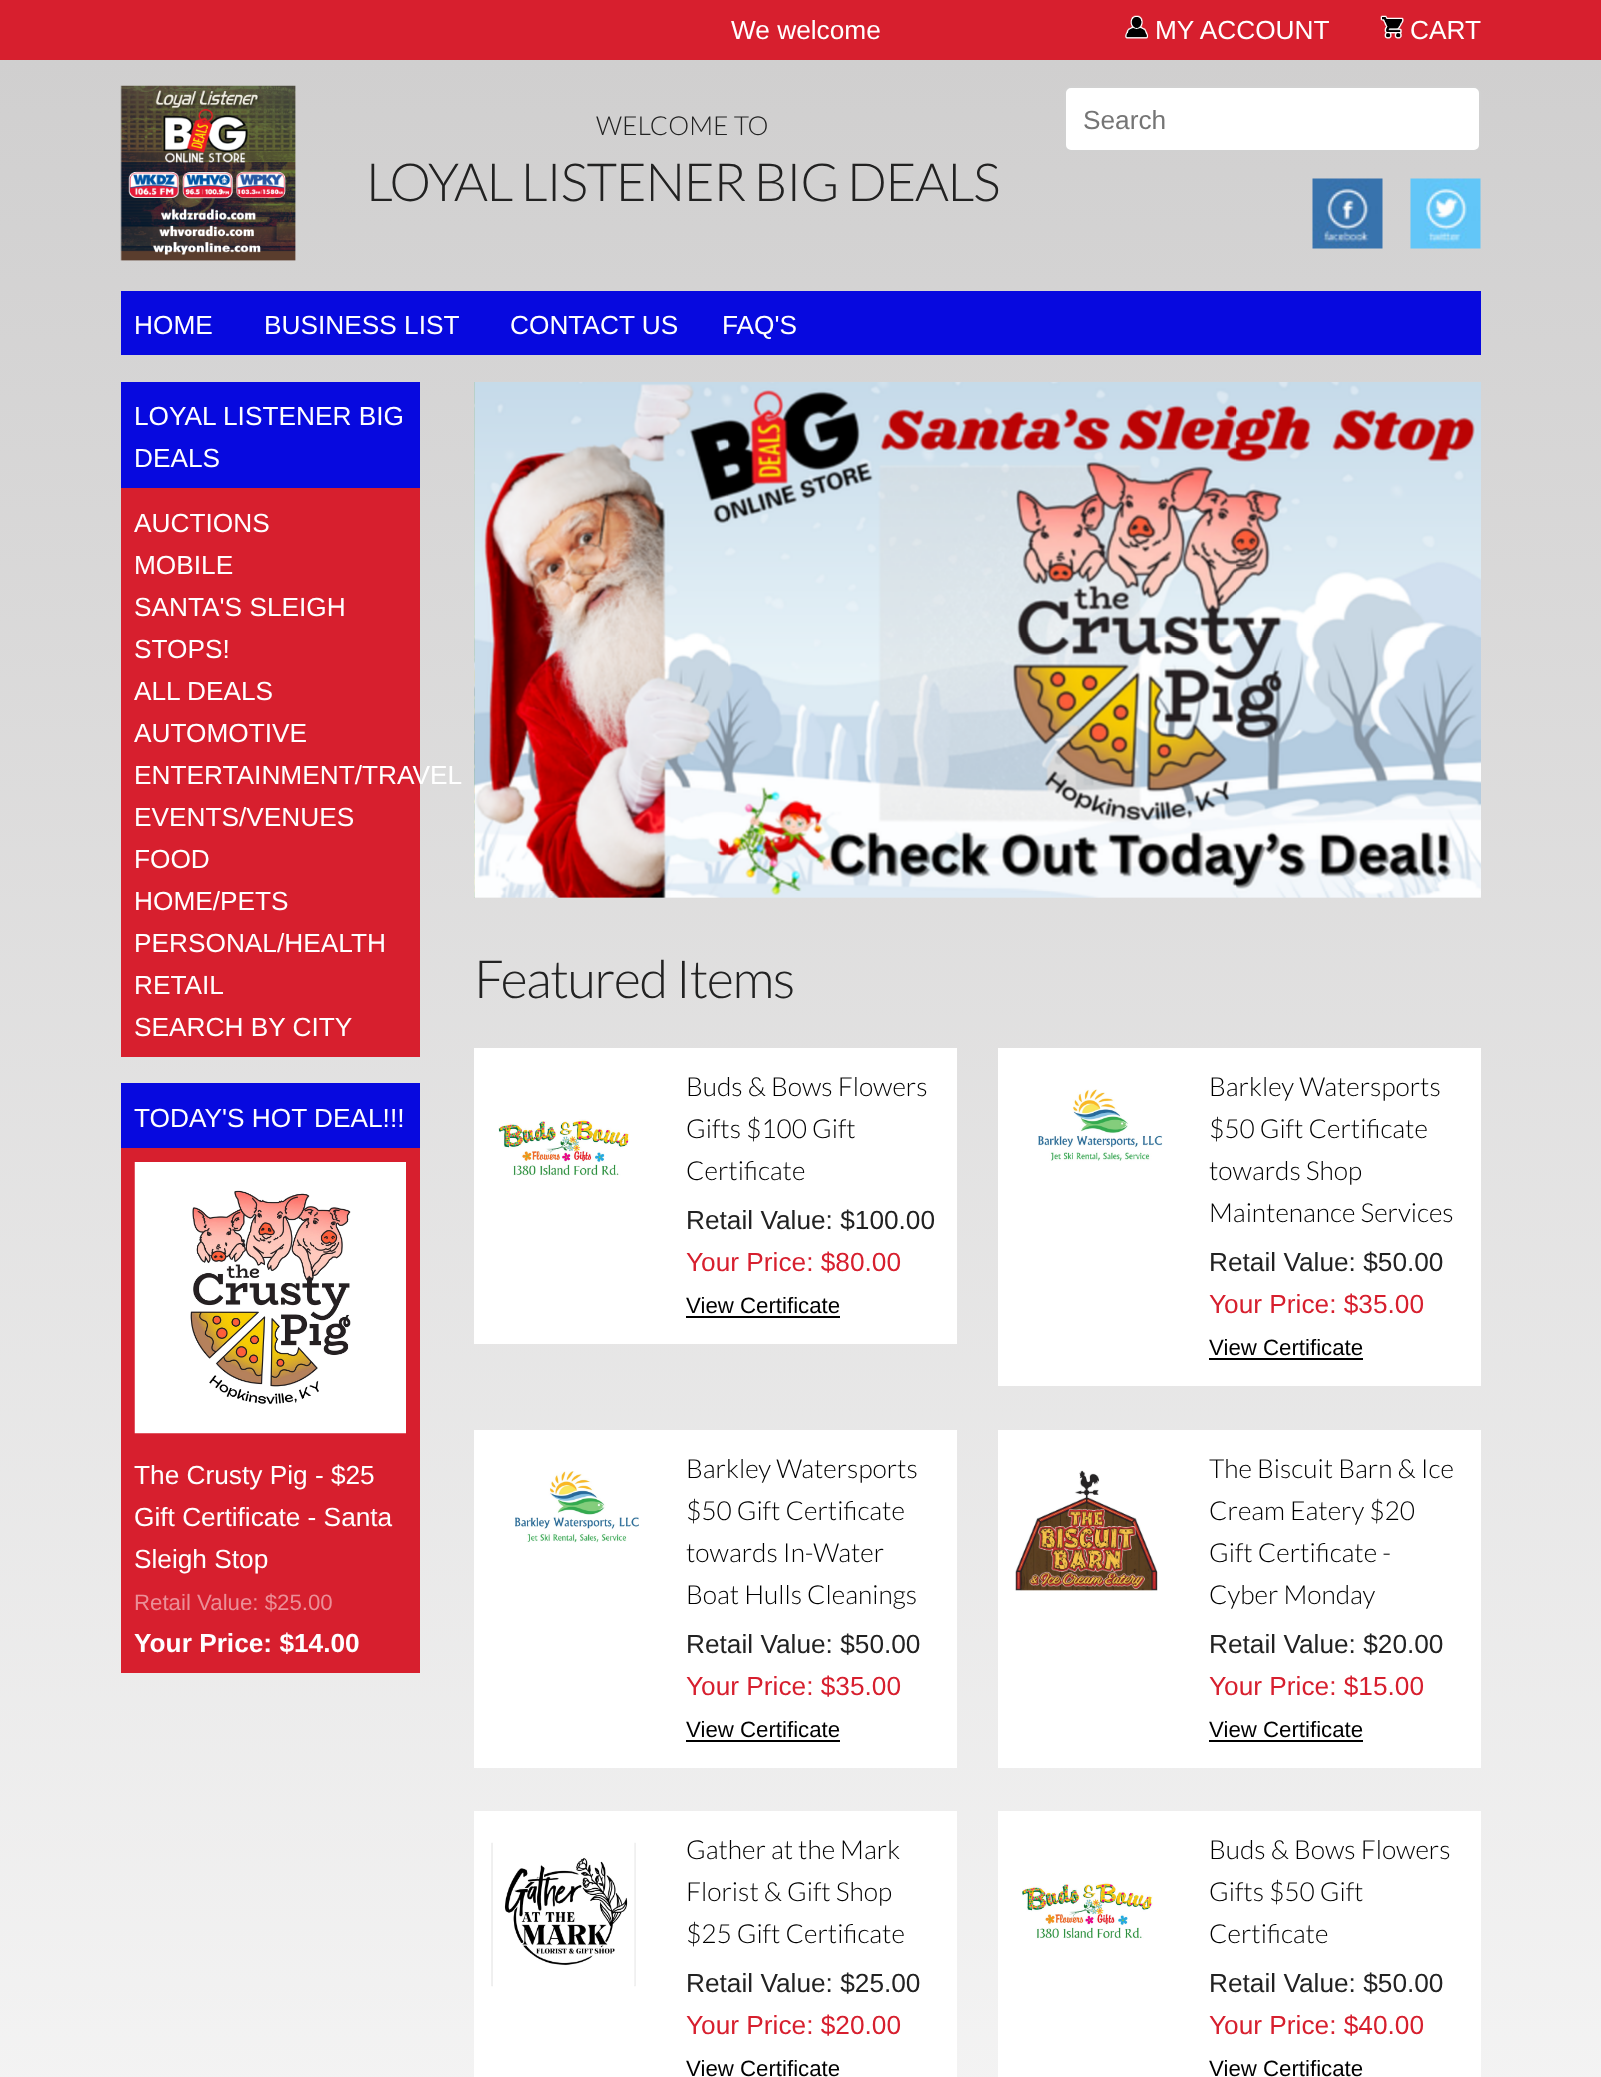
<svg xmlns="http://www.w3.org/2000/svg" width="1601" height="2077" viewBox="0 0 1601 2077">
  <defs>
    <linearGradient id="g1" gradientUnits="userSpaceOnUse" x1="0" y1="0" x2="0" y2="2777"><stop offset="0" stop-color="#cfcece"/><stop offset="1" stop-color="#fff"/></linearGradient>
  </defs>
  <rect width="100%" height="100%" fill="#fff"/>
  <path d="M0 60h1601v2017H0z" fill="url(#g1)"/>
  <path d="M0 0h1601v60H0z" fill="#d71f2e"/>
  <image x="1125" y="15" width="23" height="24" href="img/1.png"/>
  <image x="1380" y="15" width="24" height="24" href="img/2.png"/>
  <image x="120" y="85" width="176" height="176" href="img/3.png"/>
  <rect x="1065" y="87" width="415" height="64" rx="6" fill="#fff" stroke="#d1d1d1" stroke-width="2"/>
  <image x="1312" y="178" width="71" height="71" href="img/4.png"/>
  <image x="1410" y="178" width="71" height="71" href="img/5.png"/>
  <path d="M121 291h1360v64H121z" fill="#0709df"/>
  <path d="M121 382h299v106H121z" fill="#0709df"/>
  <path d="M121 488h299v569H121z" fill="#d71f2e"/>
  <path d="M121 1083h299v65H121z" fill="#0709df"/>
  <path d="M121 1148h299v525H121z" fill="#d71f2e"/>
  <image x="134" y="1162" width="272" height="272" href="img/6.png"/>
  <image x="474" y="382" width="1" height="516" href="img/7.png"/>
  <image x="474" y="382" width="1007" height="516" href="img/8.png"/>
  <path d="M474 1048h483v296H474z" fill="#fff"/>
  <image x="498" y="1119" width="132" height="57" href="img/9.png"/>
  <path d="M686 1316h154v2H686z" fill="#000"/>
  <path d="M998 1048h483v338H998z" fill="#fff"/>
  <image x="1038" y="1089" width="125" height="72" href="img/10.png"/>
  <path d="M1209 1358h154v2H1209z" fill="#000"/>
  <path d="M474 1430h483v338H474z" fill="#fff"/>
  <image x="515" y="1471" width="124" height="72" href="img/11.png"/>
  <path d="M686 1740h154v2H686z" fill="#000"/>
  <path d="M998 1430h483v338H998z" fill="#fff"/>
  <image x="1015" y="1470" width="143" height="121" href="img/12.png"/>
  <path d="M1209 1740h154v2H1209z" fill="#000"/>
  <path d="M474 1811h483v266H474z" fill="#fff"/>
  <image x="491" y="1842" width="145" height="145" href="img/13.png"/>
  <path d="M998 1811h483v266H998z" fill="#fff"/>
  <image x="1022" y="1882" width="131" height="57" href="img/14.png"/>
  <g font-family="Liberation Sans" font-size="26.25" fill="#fff">
    <text x="731" y="39">We welcome</text>
    <text x="1155" y="39">MY ACCOUNT</text>
    <text x="1410" y="39">CART</text>
  </g>
  <text x="596" y="135" font-family="Lato" font-size="26.25" font-weight="300" fill="#222">WELCOME TO</text>
  <text x="366" y="201" font-family="Lato" font-size="52.5" font-weight="300" letter-spacing="-1.4" fill="#222">LOYAL LISTENER BIG DEALS</text>
  <text x="1083" y="129" font-family="Liberation Sans" font-size="26.25" fill="#757575">Search</text>
  <g font-family="Liberation Sans" font-size="26.25" fill="#fff">
    <text x="134" y="334">HOME</text>
    <text x="264" y="334">BUSINESS LIST</text>
    <text x="510" y="334">CONTACT US</text>
    <text x="722" y="334">FAQ'S</text>
    <text x="134" y="425">LOYAL LISTENER BIG</text>
    <text x="134" y="467">DEALS</text>
    <text x="134" y="532">AUCTIONS</text>
    <text x="134" y="574">MOBILE</text>
    <text x="134" y="616">SANTA'S SLEIGH</text>
    <text x="134" y="658">STOPS!</text>
    <text x="134" y="700">ALL DEALS</text>
    <text x="134" y="742">AUTOMOTIVE</text>
    <text x="134" y="784">ENTERTAINMENT/TRAVEL</text>
    <text x="134" y="826">EVENTS/VENUES</text>
    <text x="134" y="868">FOOD</text>
    <text x="134" y="910">HOME/PETS</text>
    <text x="134" y="952">PERSONAL/HEALTH</text>
    <text x="134" y="994">RETAIL</text>
    <text x="134" y="1036">SEARCH BY CITY</text>
    <text x="134" y="1127">TODAY'S HOT DEAL!!!</text>
    <text x="134" y="1484">The Crusty Pig - $25</text>
    <text x="134" y="1526">Gift Certificate - Santa</text>
    <text x="134" y="1568">Sleigh Stop</text>
  </g>
  <text x="134" y="1610" font-family="Liberation Sans" font-size="22.25" fill="#eb8f97">Retail Value: $25.00</text>
  <text x="134" y="1652" font-family="Liberation Sans" font-size="26.25" font-weight="bold" fill="#fff">Your Price: $14.00</text>
  <text x="474" y="998" font-family="Lato" font-size="52.5" font-weight="300" letter-spacing="-1.4" fill="#222">Featured Items</text>
  <g font-family="Lato" font-size="26.25" font-weight="300" fill="#000">
    <text x="686" y="1096">Buds &amp; Bows Flowers</text>
    <text x="686" y="1138">Gifts $100 Gift</text>
    <text x="686" y="1180">Certificate</text>
  </g>
  <text x="686" y="1229" font-family="Liberation Sans" font-size="26.25" fill="#222">Retail Value: $100.00</text>
  <text x="686" y="1271" font-family="Liberation Sans" font-size="26.25" fill="#d71f2e">Your Price: $80.00</text>
  <text x="686" y="1313" font-family="Liberation Sans" font-size="22.25" fill="#000">View Certificate</text>
  <g font-family="Lato" font-size="26.25" font-weight="300" fill="#000">
    <text x="1209" y="1096">Barkley Watersports</text>
    <text x="1209" y="1138">$50 Gift Certificate</text>
    <text x="1209" y="1180">towards Shop</text>
    <text x="1209" y="1222">Maintenance Services</text>
  </g>
  <text x="1209" y="1271" font-family="Liberation Sans" font-size="26.25" fill="#222">Retail Value: $50.00</text>
  <text x="1209" y="1313" font-family="Liberation Sans" font-size="26.25" fill="#d71f2e">Your Price: $35.00</text>
  <text x="1209" y="1355" font-family="Liberation Sans" font-size="22.25" fill="#000">View Certificate</text>
  <g font-family="Lato" font-size="26.25" font-weight="300" fill="#000">
    <text x="686" y="1478">Barkley Watersports</text>
    <text x="686" y="1520">$50 Gift Certificate</text>
    <text x="686" y="1562">towards In-Water</text>
    <text x="686" y="1604">Boat Hulls Cleanings</text>
  </g>
  <text x="686" y="1653" font-family="Liberation Sans" font-size="26.25" fill="#222">Retail Value: $50.00</text>
  <text x="686" y="1695" font-family="Liberation Sans" font-size="26.25" fill="#d71f2e">Your Price: $35.00</text>
  <text x="686" y="1737" font-family="Liberation Sans" font-size="22.25" fill="#000">View Certificate</text>
  <g font-family="Lato" font-size="26.25" font-weight="300" fill="#000">
    <text x="1209" y="1478">The Biscuit Barn &amp; Ice</text>
    <text x="1209" y="1520">Cream Eatery $20</text>
    <text x="1209" y="1562">Gift Certificate -</text>
    <text x="1209" y="1604">Cyber Monday</text>
  </g>
  <text x="1209" y="1653" font-family="Liberation Sans" font-size="26.25" fill="#222">Retail Value: $20.00</text>
  <text x="1209" y="1695" font-family="Liberation Sans" font-size="26.25" fill="#d71f2e">Your Price: $15.00</text>
  <text x="1209" y="1737" font-family="Liberation Sans" font-size="22.25" fill="#000">View Certificate</text>
  <g font-family="Lato" font-size="26.25" font-weight="300" fill="#000">
    <text x="686" y="1859">Gather at the Mark</text>
    <text x="686" y="1901">Florist &amp; Gift Shop</text>
    <text x="686" y="1943">$25 Gift Certificate</text>
  </g>
  <text x="686" y="1992" font-family="Liberation Sans" font-size="26.25" fill="#222">Retail Value: $25.00</text>
  <text x="686" y="2034" font-family="Liberation Sans" font-size="26.25" fill="#d71f2e">Your Price: $20.00</text>
  <text x="686" y="2076" font-family="Liberation Sans" font-size="22.25" fill="#000">View Certificate</text>
  <g font-family="Lato" font-size="26.25" font-weight="300" fill="#000">
    <text x="1209" y="1859">Buds &amp; Bows Flowers</text>
    <text x="1209" y="1901">Gifts $50 Gift</text>
    <text x="1209" y="1943">Certificate</text>
  </g>
  <text x="1209" y="1992" font-family="Liberation Sans" font-size="26.25" fill="#222">Retail Value: $50.00</text>
  <text x="1209" y="2034" font-family="Liberation Sans" font-size="26.25" fill="#d71f2e">Your Price: $40.00</text>
  <text x="1209" y="2076" font-family="Liberation Sans" font-size="22.25" fill="#000">View Certificate</text>
</svg>
